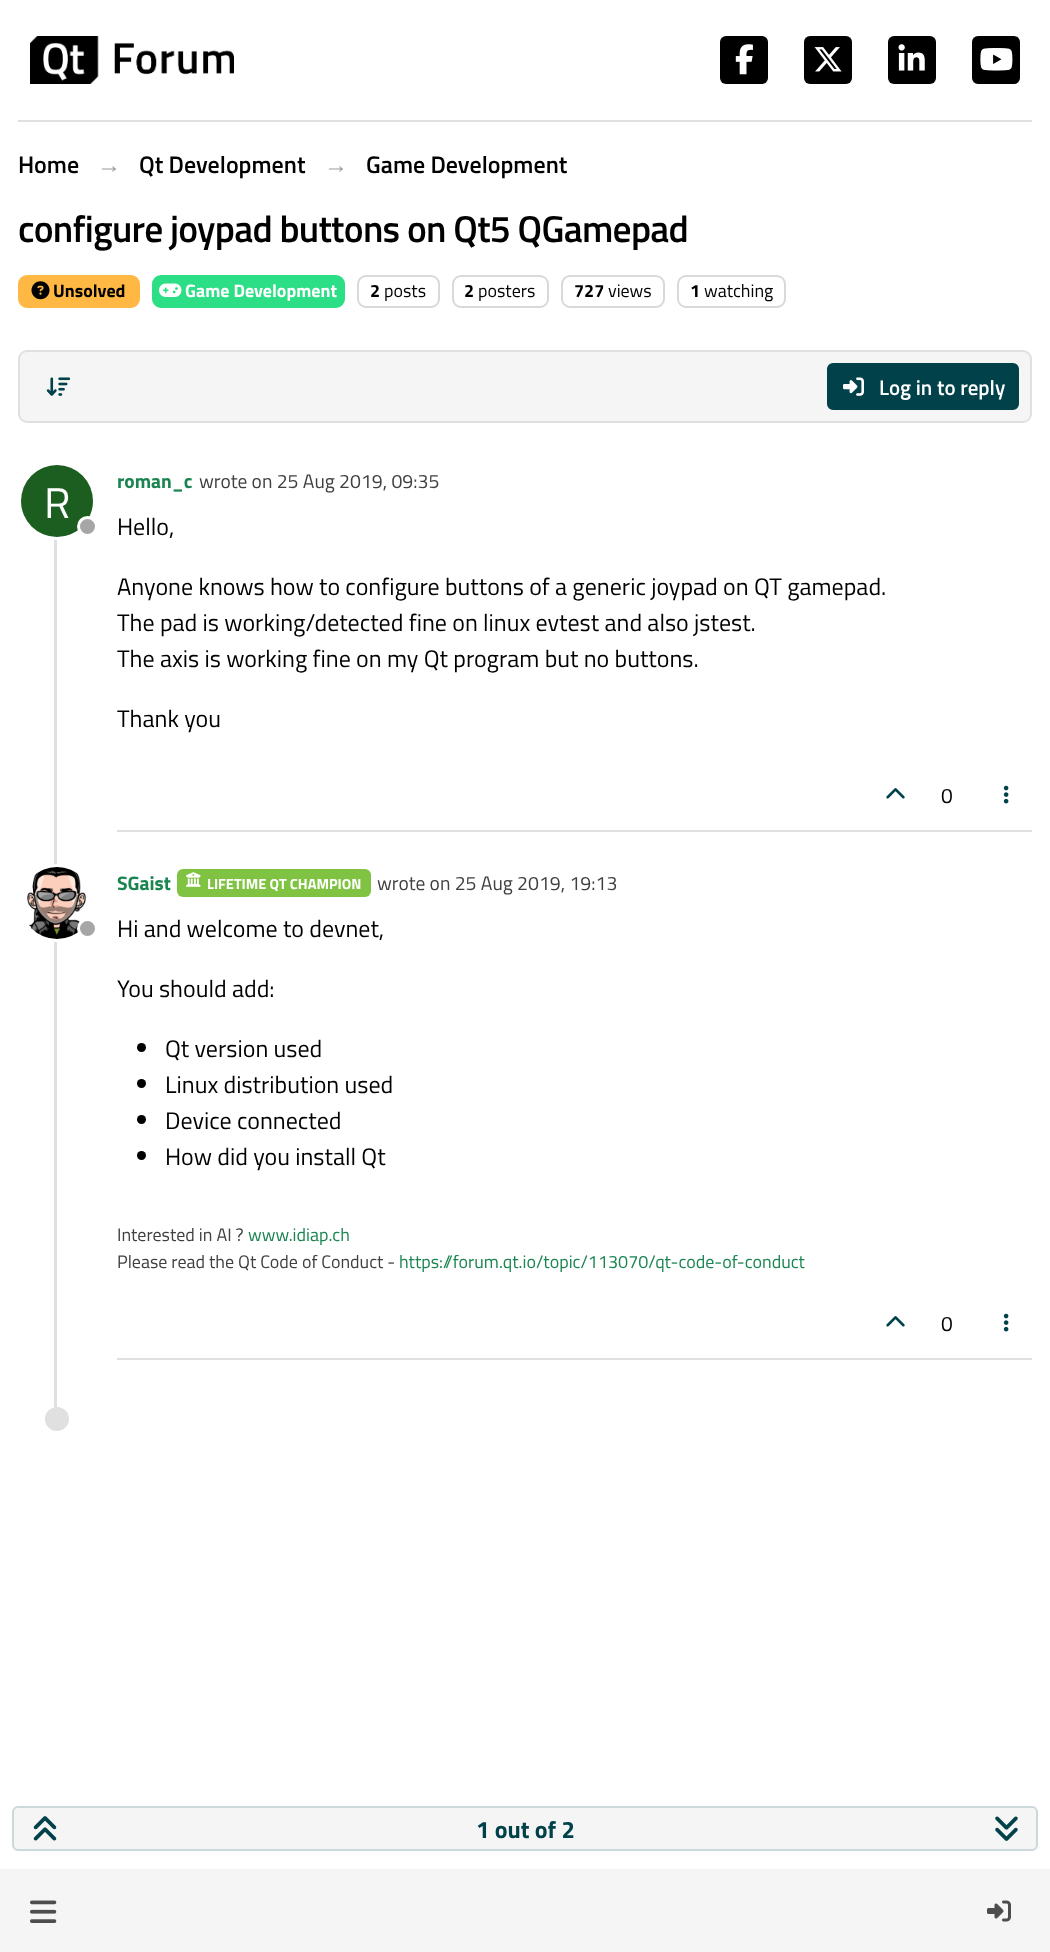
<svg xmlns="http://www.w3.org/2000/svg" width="1050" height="1952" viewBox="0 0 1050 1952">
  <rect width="100%" height="100%" fill="#fff"/>
  <path d="M18 120h1014v2H18z" fill="#e0e0e0"/>
  <image x="30" y="36" width="204" height="48" href="img/1.png"/>
  <rect x="720" y="36" width="48" height="48" rx="6" fill="#000"/>
  <image x="735" y="44" width="18" height="31" href="img/2.png"/>
  <rect x="804" y="36" width="48" height="48" rx="6" fill="#000"/>
  <image x="814" y="47" width="28" height="25" href="img/3.png"/>
  <rect x="888" y="36" width="48" height="48" rx="6" fill="#000"/>
  <image x="898" y="44" width="27" height="27" href="img/4.png"/>
  <rect x="972" y="36" width="48" height="48" rx="6" fill="#000"/>
  <image x="980" y="48" width="33" height="23" href="img/5.png"/>
  <rect x="19" y="276" width="120" height="31" rx="8" fill="#ffb844" stroke="#ffb844" stroke-width="2"/>
  <image x="31" y="281" width="19" height="19" href="img/6.png"/>
  <rect x="153" y="276" width="191" height="31" rx="8" fill="#2cde85" stroke="#2cde85" stroke-width="2"/>
  <image x="159" y="283" width="23" height="14" href="img/7.png"/>
  <rect x="358" y="276" width="81" height="31" rx="8" fill="none" stroke="#d9d9d9" stroke-width="2"/>
  <rect x="453" y="276" width="95" height="31" rx="8" fill="none" stroke="#d9d9d9" stroke-width="2"/>
  <rect x="562" y="276" width="102" height="31" rx="8" fill="none" stroke="#d9d9d9" stroke-width="2"/>
  <rect x="678" y="276" width="107" height="31" rx="8" fill="none" stroke="#d9d9d9" stroke-width="2"/>
  <rect x="19" y="351" width="1012" height="71" rx="8" fill="#f5f5f5" stroke="#e0e0e0" stroke-width="2"/>
  <image x="46" y="377" width="25" height="19" href="img/8.png"/>
  <rect x="828" y="364" width="190" height="45" rx="5" fill="#00414a" stroke="#00414a" stroke-width="2"/>
  <image x="843" y="377" width="21" height="19" href="img/9.png"/>
  <path d="M54 465h3v942H54z" fill="#e0e0e0"/>
  <circle cx="57" cy="501" r="37.5" fill="none" stroke="#fff" stroke-width="3"/>
  <circle cx="57" cy="501" r="36" fill="#1b5e20"/>
  <circle cx="87.5" cy="526.5" r="9" fill="#a6a6a6" stroke="#fff" stroke-width="3"/>
  <path d="M117 830h915v2H117z" fill="#e0e0e0"/>
  <image x="886" y="788" width="19" height="11" href="img/10.png"/>
  <image x="1003" y="785" width="6" height="19" href="img/11.png"/>
  <circle cx="57" cy="903" r="37.5" fill="#fff" stroke="#fff" stroke-width="3"/>
  <image x="27" y="867" width="60" height="72" href="img/12.png"/>
  <circle cx="87.5" cy="928.5" r="9" fill="#a6a6a6" stroke="#fff" stroke-width="3"/>
  <rect x="177" y="869" width="194" height="28" rx="6" fill="#80c342"/>
  <image x="186" y="872" width="15" height="15" href="img/13.png"/>
  <circle cx="141.5" cy="1047.5" r="4.5" fill="#000"/>
  <circle cx="141.5" cy="1083.5" r="4.5" fill="#000"/>
  <circle cx="141.5" cy="1119.5" r="4.5" fill="#000"/>
  <circle cx="141.5" cy="1155.5" r="4.5" fill="#000"/>
  <path d="M117 1358h915v2H117z" fill="#e0e0e0"/>
  <image x="886" y="1316" width="19" height="11" href="img/10.png"/>
  <image x="1003" y="1313" width="6" height="19" href="img/11.png"/>
  <circle cx="57" cy="1419" r="12" fill="#e0e0e0"/>
  <rect x="13" y="1807" width="1024" height="43" rx="5" fill="#f5f5f5" stroke="#ccd9db" stroke-width="2"/>
  <image x="33" y="1816" width="24" height="25" href="img/14.png"/>
  <image x="995" y="1816" width="23" height="25" href="img/15.png"/>
  <path d="M0 1869h1050v83H0z" fill="#f5f5f5"/>
  <image x="30" y="1900" width="27" height="23" href="img/16.png"/>
  <image x="987" y="1900" width="24" height="22" href="img/17.png"/>
  <text x="18" y="173" font-family="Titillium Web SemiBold" font-size="24" font-weight="600" fill="#000">Home</text>
  <text x="97" y="173" font-family="Liberation Sans" font-size="24" font-weight="bold" fill="#9e9e9e">→</text>
  <text x="139" y="173" font-family="Titillium Web SemiBold" font-size="24" font-weight="600" fill="#000">Qt Development</text>
  <text x="324" y="173" font-family="Liberation Sans" font-size="24" font-weight="bold" fill="#9e9e9e">→</text>
  <text x="366" y="173" font-family="Titillium Web SemiBold" font-size="24" font-weight="600" fill="#000">Game Development</text>
  <text x="18" y="242" font-family="Titillium Web SemiBold" font-size="37.5" font-weight="600" letter-spacing="-0.75" fill="#000">configure joypad buttons on Qt5 QGamepad</text>
  <text x="53" y="297" font-family="Titillium Web" font-size="18" font-weight="bold" fill="#000">Unsolved</text>
  <text x="185" y="297" font-family="Titillium Web" font-size="18" font-weight="bold" fill="#fff">Game Development</text>
  <text x="370" y="297" font-family="Titillium Web" font-size="18" font-weight="bold" fill="#000">2</text>
  <text x="384" y="297" font-family="Titillium Web" font-size="18" fill="#000">posts</text>
  <text x="464" y="297" font-family="Titillium Web" font-size="18" font-weight="bold" fill="#000">2</text>
  <text x="478" y="297" font-family="Titillium Web" font-size="18" fill="#000">posters</text>
  <text x="574" y="297" font-family="Titillium Web" font-size="18" font-weight="bold" fill="#000">727</text>
  <text x="608" y="297" font-family="Titillium Web" font-size="18" fill="#000">views</text>
  <text x="690" y="297" font-family="Titillium Web" font-size="18" font-weight="bold" fill="#000">1</text>
  <text x="704" y="297" font-family="Titillium Web" font-size="18" fill="#000">watching</text>
  <text x="879" y="395" font-family="Titillium Web SemiBold" font-size="21" font-weight="600" fill="#fff">Log in to reply</text>
  <text x="44" y="518" font-family="Titillium Web" font-size="43" fill="#fff">R</text>
  <text x="117" y="488" font-family="Titillium Web" font-size="19.5" font-weight="bold" fill="#1a8550">roman_c</text>
  <text x="199" y="488" font-family="Titillium Web" font-size="19.5" fill="#404040">wrote on 25 Aug 2019, 09:35</text>
  <g font-family="Titillium Web" font-size="24" fill="#000">
    <text x="117" y="535">Hello,</text>
    <text x="117" y="595">Anyone knows how to configure buttons of a generic joypad on QT gamepad.</text>
    <text x="117" y="631">The pad is working/detected fine on linux evtest and also jstest.</text>
    <text x="117" y="667">The axis is working fine on my Qt program but no buttons.</text>
    <text x="117" y="727">Thank you</text>
  </g>
  <text x="941" y="803" font-family="Titillium Web" font-size="21" fill="#000">0</text>
  <text x="117" y="890" font-family="Titillium Web" font-size="19.5" font-weight="bold" fill="#1a8550">SGaist</text>
  <text x="207" y="889" font-family="Titillium Web" font-size="14.6" font-weight="bold" fill="#fff">LIFETIME QT CHAMPION</text>
  <text x="377" y="890" font-family="Titillium Web" font-size="19.5" fill="#404040">wrote on 25 Aug 2019, 19:13</text>
  <g font-family="Titillium Web" font-size="24" fill="#000">
    <text x="117" y="937">Hi and welcome to devnet,</text>
    <text x="117" y="997">You should add:</text>
    <text x="165" y="1057">Qt version used</text>
    <text x="165" y="1093">Linux distribution used</text>
    <text x="165" y="1129">Device connected</text>
    <text x="165" y="1165">How did you install Qt</text>
  </g>
  <text x="117" y="1241" font-family="Titillium Web" font-size="18" fill="#404040">Interested in AI ?</text>
  <text x="248" y="1241" font-family="Titillium Web" font-size="18" fill="#1a8550">www.idiap.ch</text>
  <text x="117" y="1268" font-family="Titillium Web" font-size="18" fill="#404040">Please read the Qt Code of Conduct -</text>
  <text x="399" y="1268" font-family="Titillium Web" font-size="18" fill="#1a8550">https://forum.qt.io/topic/113070/qt-code-of-conduct</text>
  <text x="941" y="1331" font-family="Titillium Web" font-size="21" fill="#000">0</text>
  <text x="476" y="1838" font-family="Titillium Web" font-size="24" font-weight="bold" fill="#00414a">1 out of 2</text>
</svg>
